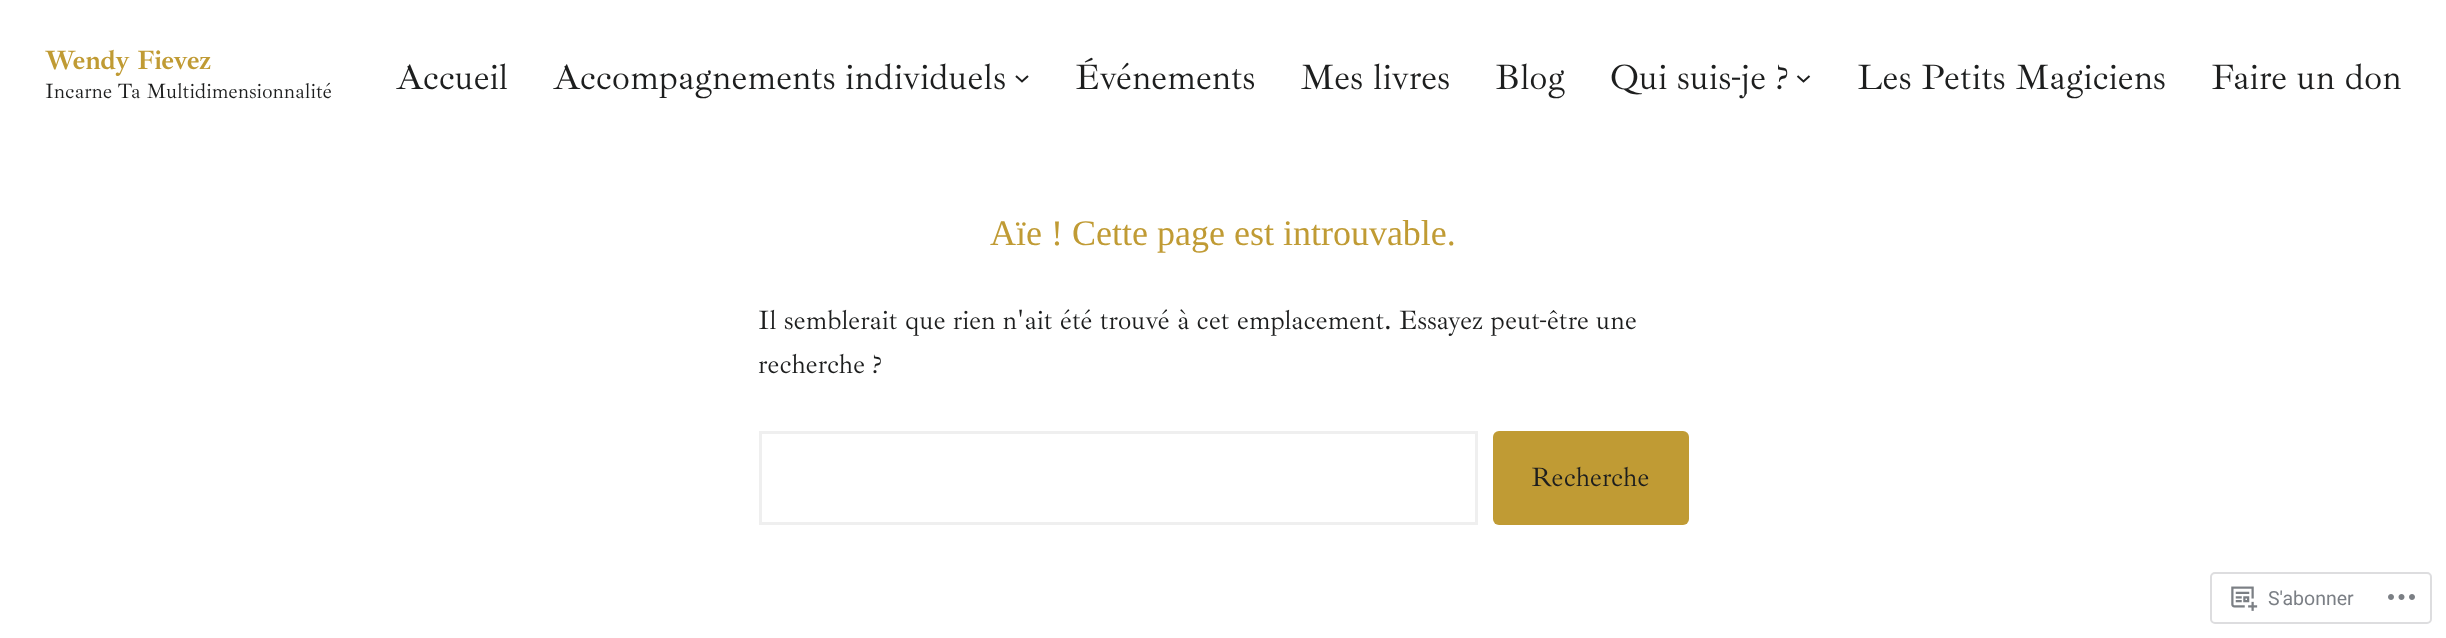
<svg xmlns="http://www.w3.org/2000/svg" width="2446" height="638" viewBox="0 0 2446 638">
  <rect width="100%" height="100%" fill="#fff"/>
  <path d="M1016 76L1022 81.5L1028 76" fill="none" stroke="#1d1e1e" stroke-width="2"/>
  <path d="M1797.5 76L1803.5 81.5L1809.5 76" fill="none" stroke="#1d1e1e" stroke-width="2"/>
  <path d="M760.5 432.5h716v91H760.5z" fill="none" stroke="#efefef" stroke-width="3"/>
  <rect x="1493" y="431" width="196" height="94" rx="6" fill="#c09b34"/>
  <rect x="2211" y="573" width="220" height="50" rx="4" fill="none" stroke="#dddddf" stroke-width="2"/>
  <image x="2231" y="586" width="27" height="25" href="img/1.png"/>
  <image x="2388" y="594" width="27" height="6" href="img/2.png"/>
  <text x="45" y="69" font-family="Ibarra Real Nova" font-size="27" font-weight="bold" fill="#c09b34">Wendy Fievez</text>
  <text x="45" y="98" font-family="Ibarra Real Nova" font-size="21" fill="#1d1e1e">Incarne Ta Multidimensionnalité</text>
  <g font-family="Ibarra Real Nova" font-size="36" fill="#1d1e1e">
    <text x="396" y="89">Accueil</text>
    <text x="553" y="89">Accompagnements individuels</text>
    <text x="1075" y="89">Événements</text>
    <text x="1300" y="89">Mes livres</text>
    <text x="1495" y="89">Blog</text>
    <text x="1610" y="89">Qui suis-je ?</text>
    <text x="1857" y="89">Les Petits Magiciens</text>
    <text x="2211" y="89">Faire un don</text>
  </g>
  <text x="990" y="245" font-family="Liberation Serif" font-size="36" fill="#c09b34">Aïe ! Cette page est introuvable.</text>
  <g font-family="Ibarra Real Nova" font-size="27" fill="#1d1e1e">
    <text x="758" y="329">Il semblerait que rien n'ait été trouvé à cet emplacement. Essayez peut-être une</text>
    <text x="758" y="373">recherche ?</text>
    <text x="1531" y="486">Recherche</text>
  </g>
  <text x="2268" y="605" font-family="Roboto" font-size="19.5" fill="#7b7f85">S'abonner</text>
</svg>
